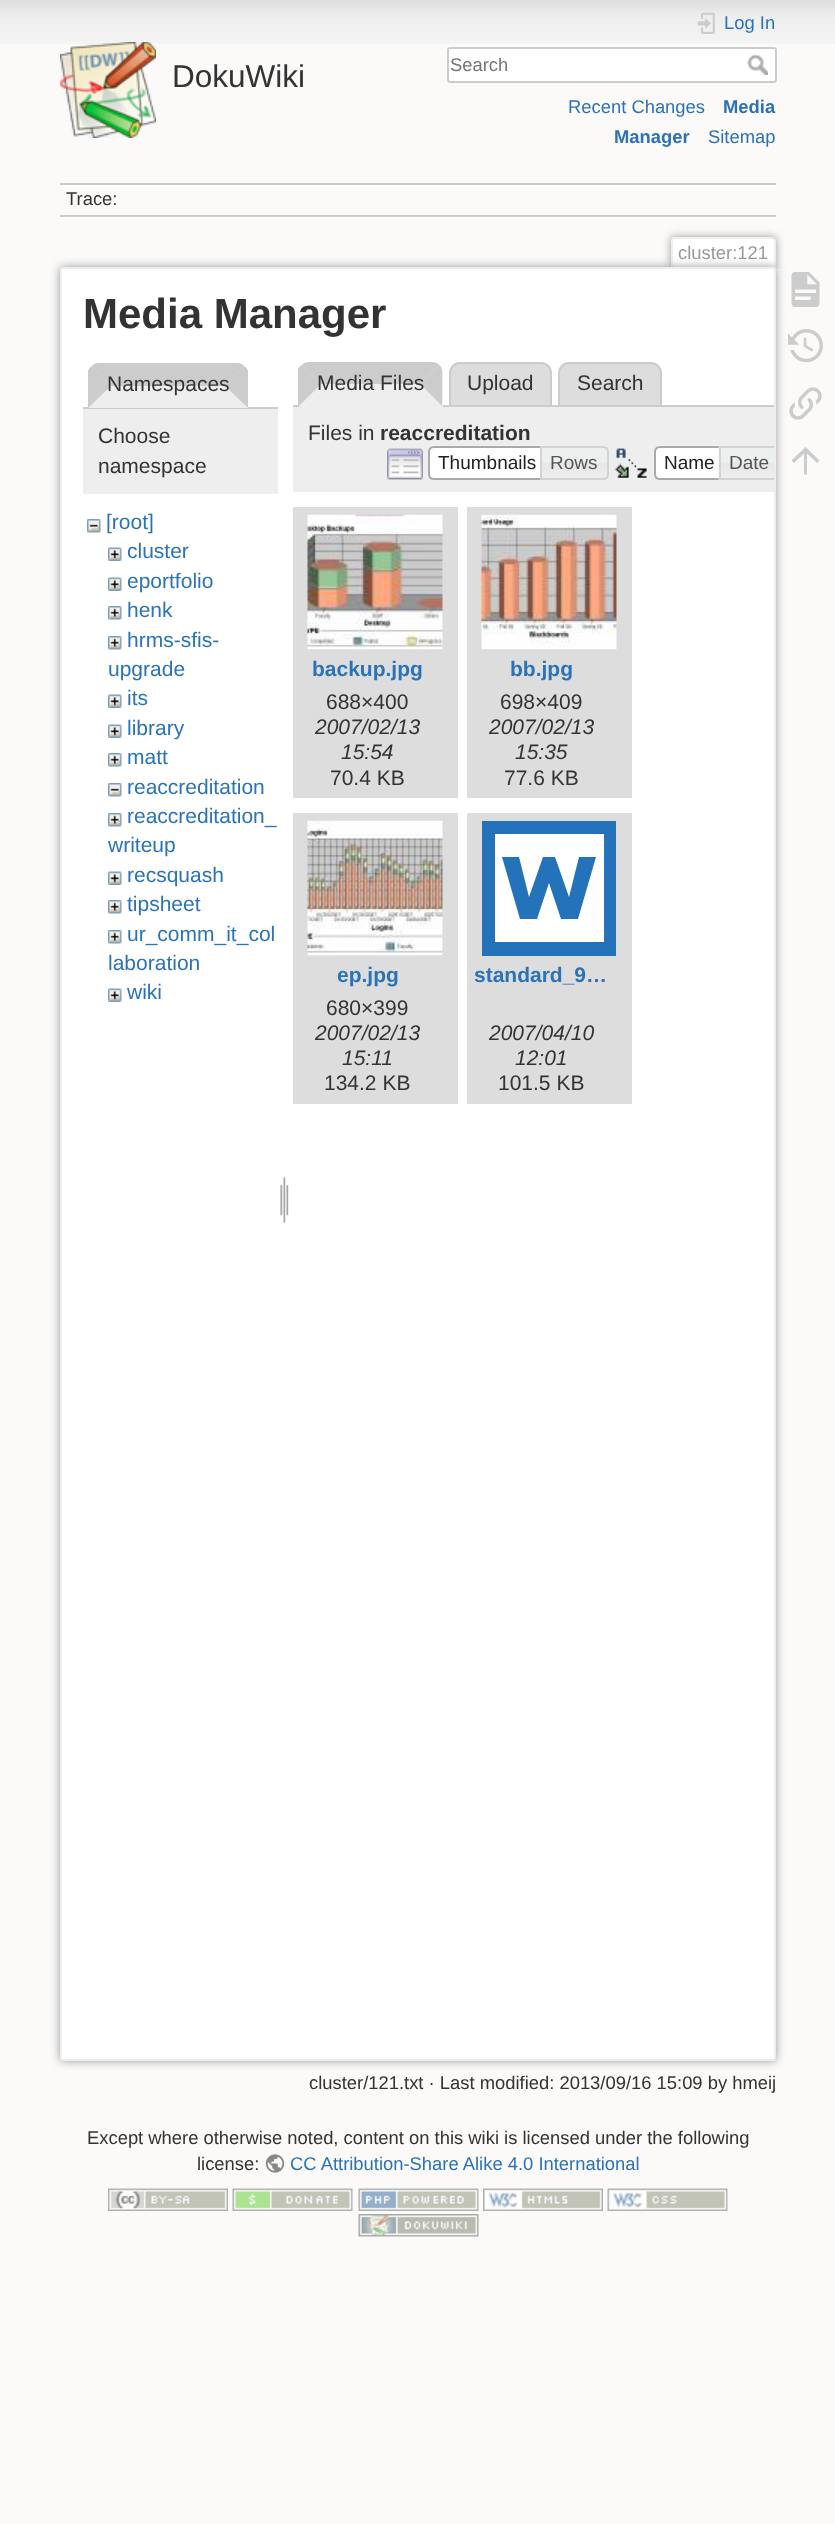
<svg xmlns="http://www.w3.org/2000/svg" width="835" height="2524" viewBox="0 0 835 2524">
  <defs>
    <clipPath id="clip1"><path d="M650 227h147v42H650z"/></clipPath>
    <clipPath id="clip2"><path d="M482 821h135v135H482z"/></clipPath>
  </defs>
  <rect width="100%" height="100%" fill="#fbfaf9"/>
  <image x="0" y="0" width="835" height="44" href="img/1.png"/>
  <image x="60" y="42" width="96" height="96" href="img/2.png"/>
  <image x="697" y="12" width="18" height="22" href="img/3.png"/>
  <rect x="448" y="48" width="328" height="34" rx="2" fill="#fff" stroke="#ccc" stroke-width="2"/>
  <image x="747" y="54" width="21" height="21" href="img/4.png"/>
  <path d="M60 183h716v2H60z" fill="#ccc"/>
  <path d="M60 217h716v1H60z" fill="#fff"/>
  <path d="M60 185h716v2H60z" fill="#fff"/>
  <path d="M60 215h716v2H60z" fill="#ccc"/>
  <g clip-path="url(#clip1)">
    <rect x="671" y="237" width="105" height="32" rx="3" fill="#999" filter="blur(4.5px)"/>
  </g>
  <path d="M673.5 239H772.5C773.5 239 774 239.5 774 240.5V269H672V240.5C672 239.5 672.5 239 673.5 239Z" fill="#fff"/>
  <path d="M672 237h102v2H672z" fill="#eee"/>
  <path d="M774 239h2v30H774z" fill="#eee"/>
  <path d="M671 239h2v30H671z" fill="#eee"/>
  <rect x="60" y="267" width="716" height="1794" rx="3" fill="#999" filter="blur(5px)"/>
  <rect x="61" y="268" width="714" height="1792" rx="2" fill="#fff" stroke="#eee" stroke-width="2"/>
  <path d="M83 407h195v2H83z" fill="#ccc"/>
  <path d="M100 363H237C243 363 248 368 248 374V408H89V374C89 368 94 363 100 363Z" fill="#eee"/>
  <path d="M99 363H237C240 363 243 364 244 366L225 386H111L92 366C93 364 96 363 99 363Z" fill="#ccc"/>
  <path d="M244 366L225 386L248 408V371C247 369 246 367 244 366Z" fill="#ccc"/>
  <path d="M248 408L225 386H111L88 408Z" fill="#eee"/>
  <path d="M88 408L111 386L92 366C90 367 89 369 88 371Z" fill="#ccc"/>
  <path d="M83 409h195v85H83z" fill="#eee"/>
  <image x="87" y="519" width="14" height="14" href="img/5.png"/>
  <image x="108" y="547" width="14" height="14" href="img/6.png"/>
  <image x="108" y="577" width="14" height="14" href="img/6.png"/>
  <image x="108" y="606" width="14" height="14" href="img/7.png"/>
  <image x="108" y="636" width="14" height="14" href="img/7.png"/>
  <image x="108" y="694" width="14" height="14" href="img/6.png"/>
  <image x="108" y="724" width="14" height="14" href="img/6.png"/>
  <image x="108" y="753" width="14" height="14" href="img/7.png"/>
  <image x="108" y="783" width="14" height="14" href="img/5.png"/>
  <image x="108" y="813" width="14" height="14" href="img/7.png"/>
  <image x="108" y="871" width="14" height="14" href="img/6.png"/>
  <image x="108" y="900" width="14" height="14" href="img/7.png"/>
  <image x="108" y="930" width="14" height="14" href="img/7.png"/>
  <image x="108" y="988" width="14" height="14" href="img/6.png"/>
  <image x="280" y="1176" width="9" height="47" href="img/8.png"/>
  <path d="M460 363H541C546.5 363 551 367.5 551 373V406H450V373C450 367.5 454.5 363 460 363Z" fill="#ddd" stroke="#ccc" stroke-width="2"/>
  <path d="M569 363H651C656.5 363 661 367.5 661 373V406H559V373C559 367.5 563.5 363 569 363Z" fill="#ddd" stroke="#ccc" stroke-width="2"/>
  <path d="M293 405h481v2H293z" fill="#ccc"/>
  <path d="M310 362H432C438 362 443 367 443 373V407H299V373C299 367 304 362 310 362Z" fill="#eee"/>
  <path d="M309 362C306 362 303 363 302 365L321 384H420L439 365C438 363 435 362 432 362Z" fill="#ccc"/>
  <path d="M442 406V372C442 369 441 366 439 365L420 384Z" fill="#ccc"/>
  <path d="M442 406L420 384H321L299 406Z" fill="#eee"/>
  <path d="M298 369C299 367 300 366 302 365L321 384L299 406H298Z" fill="#ccc"/>
  <path d="M293 407h481v85H293z" fill="#eee"/>
  <image x="387" y="448" width="36" height="32" href="img/9.png"/>
  <image x="427" y="445" width="120" height="35" href="img/10.png"/>
  <path d="M434 447H547V479H434C431 479 429 477 429 474V452C429 449 431 447 434 447Z" fill="none" stroke="#aaa" stroke-width="2"/>
  <image x="542" y="446" width="67" height="34" href="img/11.png"/>
  <path d="M541 447H603C606 447 608 449 608 452V474C608 477 606 479 603 479H541Z" fill="none" stroke="#d3d3d3" stroke-width="2"/>
  <image x="614" y="448" width="33" height="30" href="img/12.png"/>
  <path d="M660 446H726V480H660C656.5 480 654 477.5 654 474V452C654 448.5 656.5 446 660 446Z" fill="#fff"/>
  <image x="654" y="445" width="72" height="5" href="img/13.png"/>
  <path d="M660 447H725V479H660C657 479 655 477 655 474V452C655 449 657 447 660 447Z" fill="none" stroke="#aaa" stroke-width="2"/>
  <image x="718" y="446" width="56" height="34" href="img/14.png"/>
  <path d="M719 446V480H774V478H721V448H774V446Z" fill="#d3d3d3"/>
  <path d="M293 507h165v291H293z" fill="#ddd"/>
  <image x="307" y="514" width="136" height="136" href="img/15.png"/>
  <path d="M467 507h165v291H467z" fill="#ddd"/>
  <image x="481" y="514" width="136" height="136" href="img/16.png"/>
  <path d="M293 813h165v291H293z" fill="#ddd"/>
  <image x="307" y="820" width="136" height="136" href="img/17.png"/>
  <path d="M467 813h165v291H467z" fill="#ddd"/>
  <path d="M495 834h109v108H495z" fill="#fff"/>
  <g clip-path="url(#clip2)">
    <path d="M616 956H482V820H616ZM495 942H604V834H495" fill="#2372ba"/>
  </g>
  <path d="M519 857L529 897L543 857H555L569 897L579 857H596L578 919H561L549 883L537 919H520L502 857Z" fill="#2372ba"/>
  <image x="791" y="272" width="29" height="35" href="img/18.png"/>
  <image x="788" y="329" width="35" height="34" href="img/19.png"/>
  <image x="789" y="387" width="33" height="33" href="img/20.png"/>
  <path d="M807 474.5H804V453.5L794 463L791.5 460.5L805.5 447L819.5 460.5L817 463L807 453.5Z" fill="#ccc"/>
  <image x="265" y="2154" width="20" height="19" href="img/21.png"/>
  <image x="108" y="2188" width="120" height="23" href="img/22.png"/>
  <image x="232" y="2188" width="121" height="23" href="img/23.png"/>
  <image x="358" y="2188" width="121" height="23" href="img/24.png"/>
  <image x="483" y="2188" width="120" height="23" href="img/25.png"/>
  <image x="607" y="2188" width="121" height="23" href="img/26.png"/>
  <image x="358" y="2214" width="121" height="23" href="img/27.png"/>
  <text x="172" y="87" font-family="Liberation Sans" font-size="31.5" fill="#333">DokuWiki</text>
  <text x="724" y="29" font-family="Liberation Sans" font-size="18.4" fill="#2b73b7">Log In</text>
  <text x="450" y="71" font-family="Liberation Sans" font-size="18.4" fill="#757575">Search</text>
  <text x="568" y="113" font-family="Liberation Sans" font-size="18.4" fill="#2b73b7">Recent Changes</text>
  <g font-family="Liberation Sans" font-size="18.4" font-weight="bold" fill="#2b73b7">
    <text x="723" y="113">Media</text>
    <text x="614" y="143">Manager</text>
  </g>
  <text x="708" y="143" font-family="Liberation Sans" font-size="18.4" fill="#2b73b7">Sitemap</text>
  <text x="66" y="205" font-family="Liberation Sans" font-size="18.4" fill="#333">Trace:</text>
  <text x="678" y="259" font-family="Liberation Sans" font-size="18.4" fill="#999">cluster:121</text>
  <text x="83" y="328" font-family="Liberation Sans" font-size="42" font-weight="bold" fill="#333">Media Manager</text>
  <g font-family="Liberation Sans" font-size="21" fill="#333">
    <text x="107" y="391">Namespaces</text>
    <text x="98" y="443">Choose</text>
    <text x="98" y="473">namespace</text>
  </g>
  <g font-family="Liberation Sans" font-size="21" fill="#2b73b7">
    <text x="106" y="529">[root]</text>
    <text x="127" y="558">cluster</text>
    <text x="127" y="588">eportfolio</text>
    <text x="127" y="617">henk</text>
    <text x="127" y="647">hrms-sfis-</text>
    <text x="108" y="676">upgrade</text>
    <text x="127" y="705">its</text>
    <text x="127" y="735">library</text>
    <text x="127" y="764">matt</text>
    <text x="127" y="794">reaccreditation</text>
    <text x="127" y="823">reaccreditation_</text>
    <text x="108" y="852">writeup</text>
    <text x="127" y="882">recsquash</text>
    <text x="127" y="911">tipsheet</text>
    <text x="127" y="941">ur_comm_it_col</text>
    <text x="108" y="970">laboration</text>
    <text x="127" y="999">wiki</text>
  </g>
  <g font-family="Liberation Sans" font-size="21" fill="#333">
    <text x="317" y="390">Media Files</text>
    <text x="467" y="390">Upload</text>
    <text x="577" y="390">Search</text>
    <text x="308" y="440">Files in</text>
  </g>
  <text x="380" y="440" font-family="Liberation Sans" font-size="21" font-weight="bold" fill="#333">reaccreditation</text>
  <text x="438" y="469" font-family="Liberation Sans" font-size="19" fill="#212121">Thumbnails</text>
  <text x="550" y="469" font-family="Liberation Sans" font-size="19" fill="#555">Rows</text>
  <text x="664" y="469" font-family="Liberation Sans" font-size="19" fill="#212121">Name</text>
  <text x="729" y="469" font-family="Liberation Sans" font-size="19" fill="#555">Date</text>
  <text x="312" y="676" font-family="Liberation Sans" font-size="21" font-weight="bold" fill="#2b73b7">backup.jpg</text>
  <text x="326" y="709" font-family="Liberation Sans" font-size="21" fill="#333">688×400</text>
  <g font-family="Liberation Sans" font-size="21" font-style="italic" fill="#333">
    <text x="315" y="734">2007/02/13</text>
    <text x="341" y="759">15:54</text>
  </g>
  <text x="330" y="785" font-family="Liberation Sans" font-size="21" fill="#333">70.4 KB</text>
  <text x="510" y="676" font-family="Liberation Sans" font-size="21" font-weight="bold" fill="#2b73b7">bb.jpg</text>
  <text x="500" y="709" font-family="Liberation Sans" font-size="21" fill="#333">698×409</text>
  <g font-family="Liberation Sans" font-size="21" font-style="italic" fill="#333">
    <text x="489" y="734">2007/02/13</text>
    <text x="515" y="759">15:35</text>
  </g>
  <text x="504" y="785" font-family="Liberation Sans" font-size="21" fill="#333">77.6 KB</text>
  <text x="337" y="982" font-family="Liberation Sans" font-size="21" font-weight="bold" fill="#2b73b7">ep.jpg</text>
  <text x="326" y="1015" font-family="Liberation Sans" font-size="21" fill="#333">680×399</text>
  <g font-family="Liberation Sans" font-size="21" font-style="italic" fill="#333">
    <text x="315" y="1040">2007/02/13</text>
    <text x="342" y="1065">15:11</text>
  </g>
  <text x="324" y="1090" font-family="Liberation Sans" font-size="21" fill="#333">134.2 KB</text>
  <text x="474" y="982" font-family="Liberation Sans" font-size="21" font-weight="bold" fill="#2b73b7">standard_9…</text>
  <g font-family="Liberation Sans" font-size="21" font-style="italic" fill="#333">
    <text x="489" y="1040">2007/04/10</text>
    <text x="515" y="1065">12:01</text>
  </g>
  <text x="498" y="1090" font-family="Liberation Sans" font-size="21" fill="#333">101.5 KB</text>
  <g font-family="Liberation Sans" font-size="18.4" fill="#333">
    <text x="309" y="2089">cluster/121.txt · Last modified: 2013/09/16 15:09 by hmeij</text>
    <text x="87" y="2144">Except where otherwise noted, content on this wiki is licensed under the following</text>
    <text x="197" y="2170">license:</text>
  </g>
  <text x="290" y="2170" font-family="Liberation Sans" font-size="18.4" fill="#2b73b7">CC Attribution-Share Alike 4.0 International</text>
</svg>
